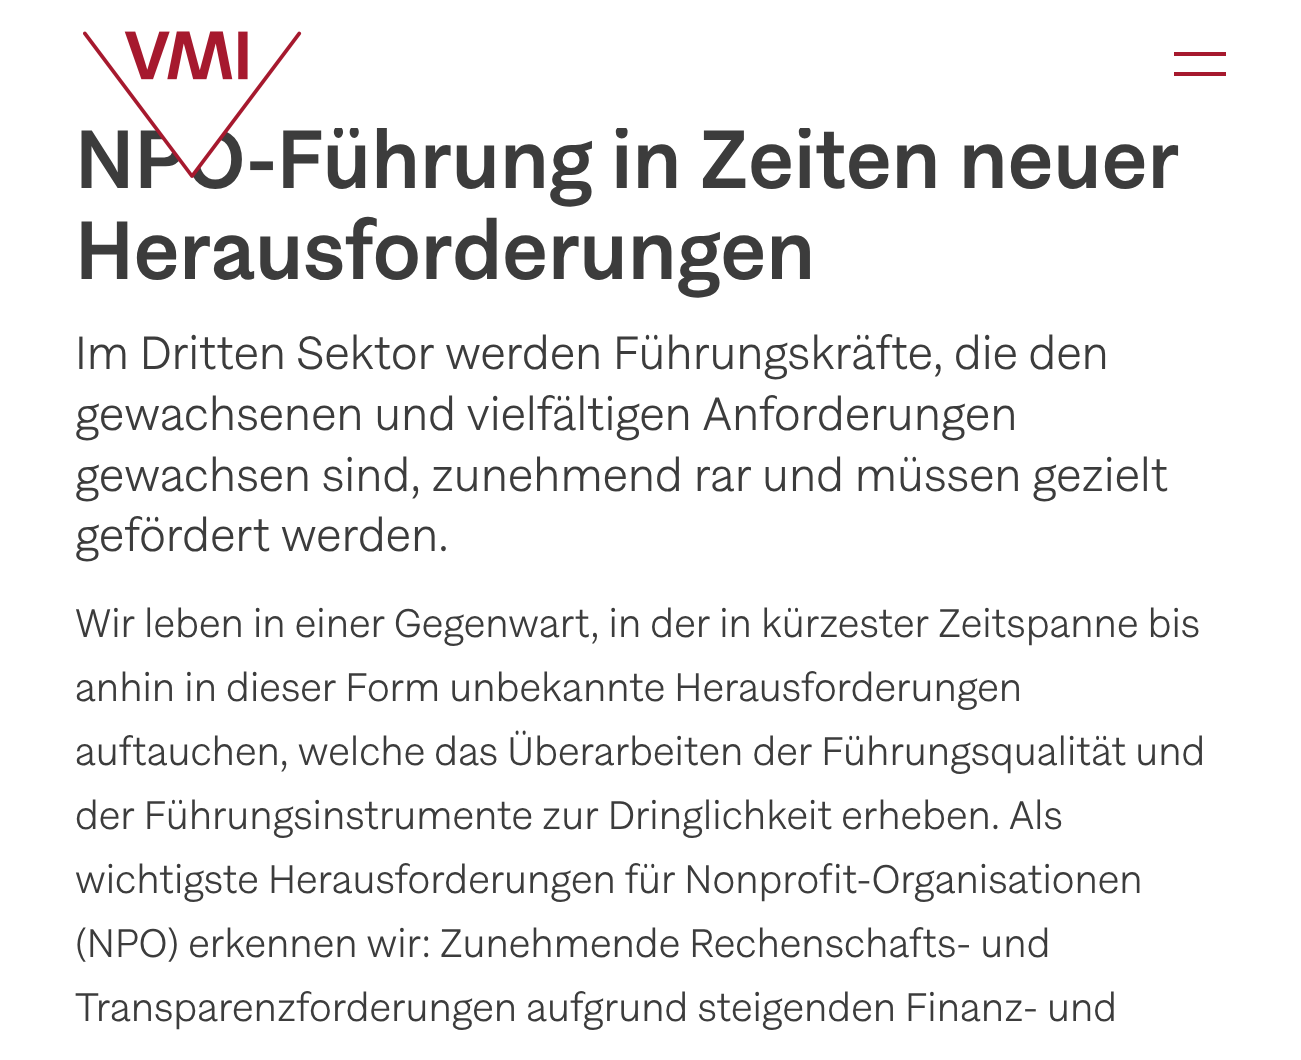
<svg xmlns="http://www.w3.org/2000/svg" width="1301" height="1060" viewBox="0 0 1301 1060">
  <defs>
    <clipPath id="clip1"><path d="M0 128h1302v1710H0z"/></clipPath>
  </defs>
  <rect width="100%" height="100%" fill="#fff"/>
  <path d="M1174 52h52v4H1174z" fill="#a6192e"/>
  <path d="M1174 72h52v4H1174z" fill="#a6192e"/>
  <g clip-path="url(#clip1)">
    <text x="75" y="188" font-family="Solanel" font-size="83" font-weight="500" fill="#3c3c3c">NPO-Führung in Zeiten neuer</text>
  </g>
  <image x="83" y="31" width="219" height="147" href="img/1.png"/>
  <text x="75" y="279" font-family="Solanel" font-size="83" font-weight="500" fill="#3c3c3c">Herausforderungen</text>
  <g font-family="Solanel" font-size="46.75" font-weight="300" fill="#3c3c3c">
    <text x="75" y="369">Im Dritten Sektor werden Führungskräfte, die den</text>
    <text x="75" y="430">gewachsenen und vielfältigen Anforderungen</text>
    <text x="75" y="491">gewachsen sind, zunehmend rar und müssen gezielt</text>
    <text x="75" y="551">gefördert werden.</text>
  </g>
  <g font-family="Solanel" font-size="40" font-weight="300" fill="#3c3c3c">
    <text x="75" y="637">Wir leben in einer Gegenwart, in der in kürzester Zeitspanne bis</text>
    <text x="75" y="701">anhin in dieser Form unbekannte Herausforderungen</text>
    <text x="75" y="765">auftauchen, welche das Überarbeiten der Führungsqualität und</text>
    <text x="75" y="829">der Führungsinstrumente zur Dringlichkeit erheben. Als</text>
    <text x="75" y="893">wichtigste Herausforderungen für Nonprofit-Organisationen</text>
    <text x="75" y="957">(NPO) erkennen wir: Zunehmende Rechenschafts- und</text>
    <text x="75" y="1021">Transparenzforderungen aufgrund steigenden Finanz- und</text>
  </g>
</svg>
